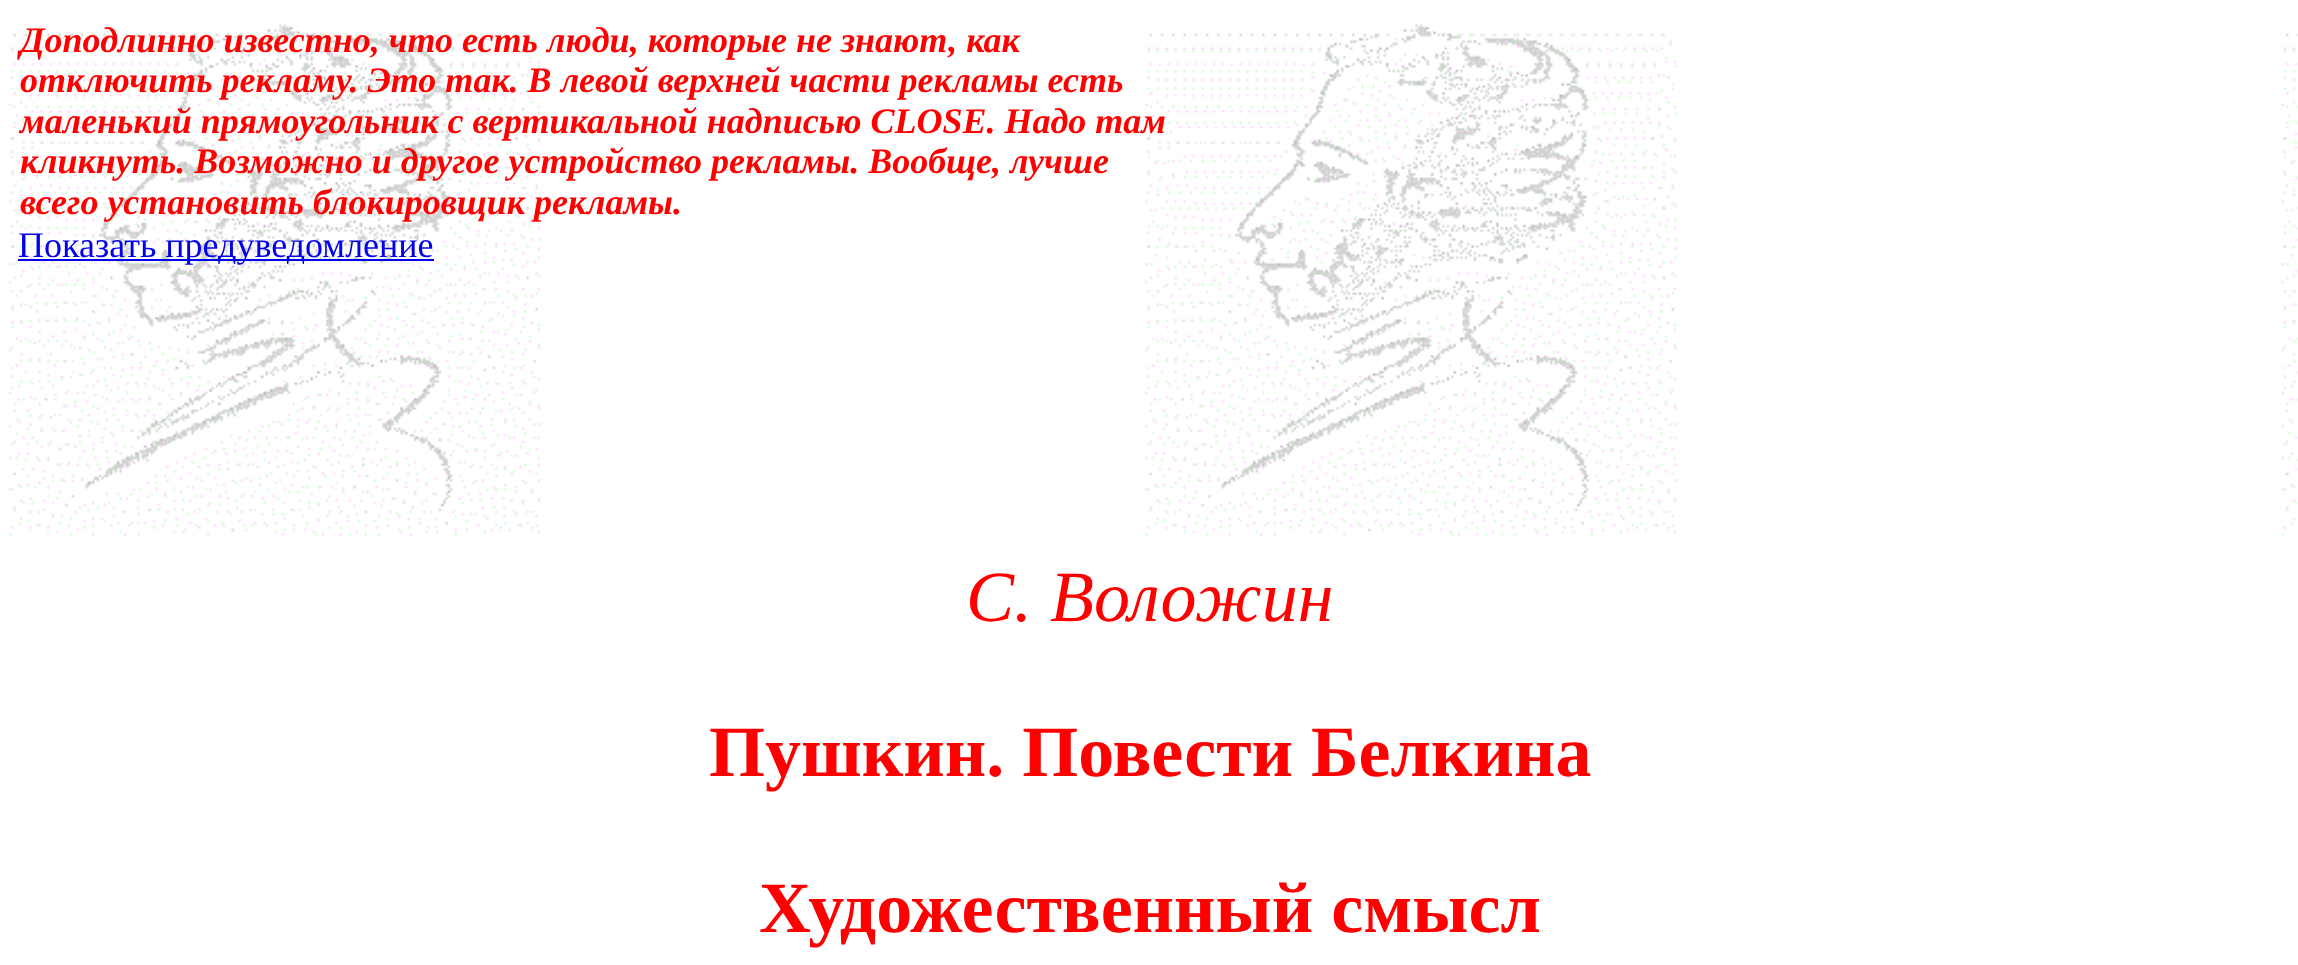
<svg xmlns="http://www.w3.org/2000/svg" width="2298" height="965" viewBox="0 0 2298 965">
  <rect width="100%" height="100%" fill="#fff"/>
  <image x="8" y="24" width="2290" height="512" href="img/1.png"/>
  <path d="M18 259h416v2H18z" fill="#00e"/>
  <g font-family="Liberation Serif" font-size="36" font-weight="bold" font-style="italic" fill="#f00">
    <text x="20" y="52">Доподлинно известно, что есть люди, которые не знают, как</text>
    <text x="20" y="92">отключить рекламу. Это так. В левой верхней части рекламы есть</text>
    <text x="20" y="133">маленький прямоугольник с вертикальной надписью CLOSE. Надо там</text>
    <text x="20" y="173">кликнуть. Возможно и другое устройство рекламы. Вообще, лучше</text>
    <text x="20" y="214">всего установить блокировщик рекламы.</text>
  </g>
  <text x="18" y="257" font-family="Liberation Serif" font-size="36" fill="#00e">Показать предуведомление</text>
  <text x="966" y="621" font-family="Liberation Serif" font-size="72" font-style="italic" fill="#f00">С. Воложин</text>
  <g font-family="Liberation Serif" font-size="72" font-weight="bold" fill="#f00">
    <text x="709" y="776">Пушкин. Повести Белкина</text>
    <text x="759" y="932">Художественный смысл</text>
  </g>
</svg>
